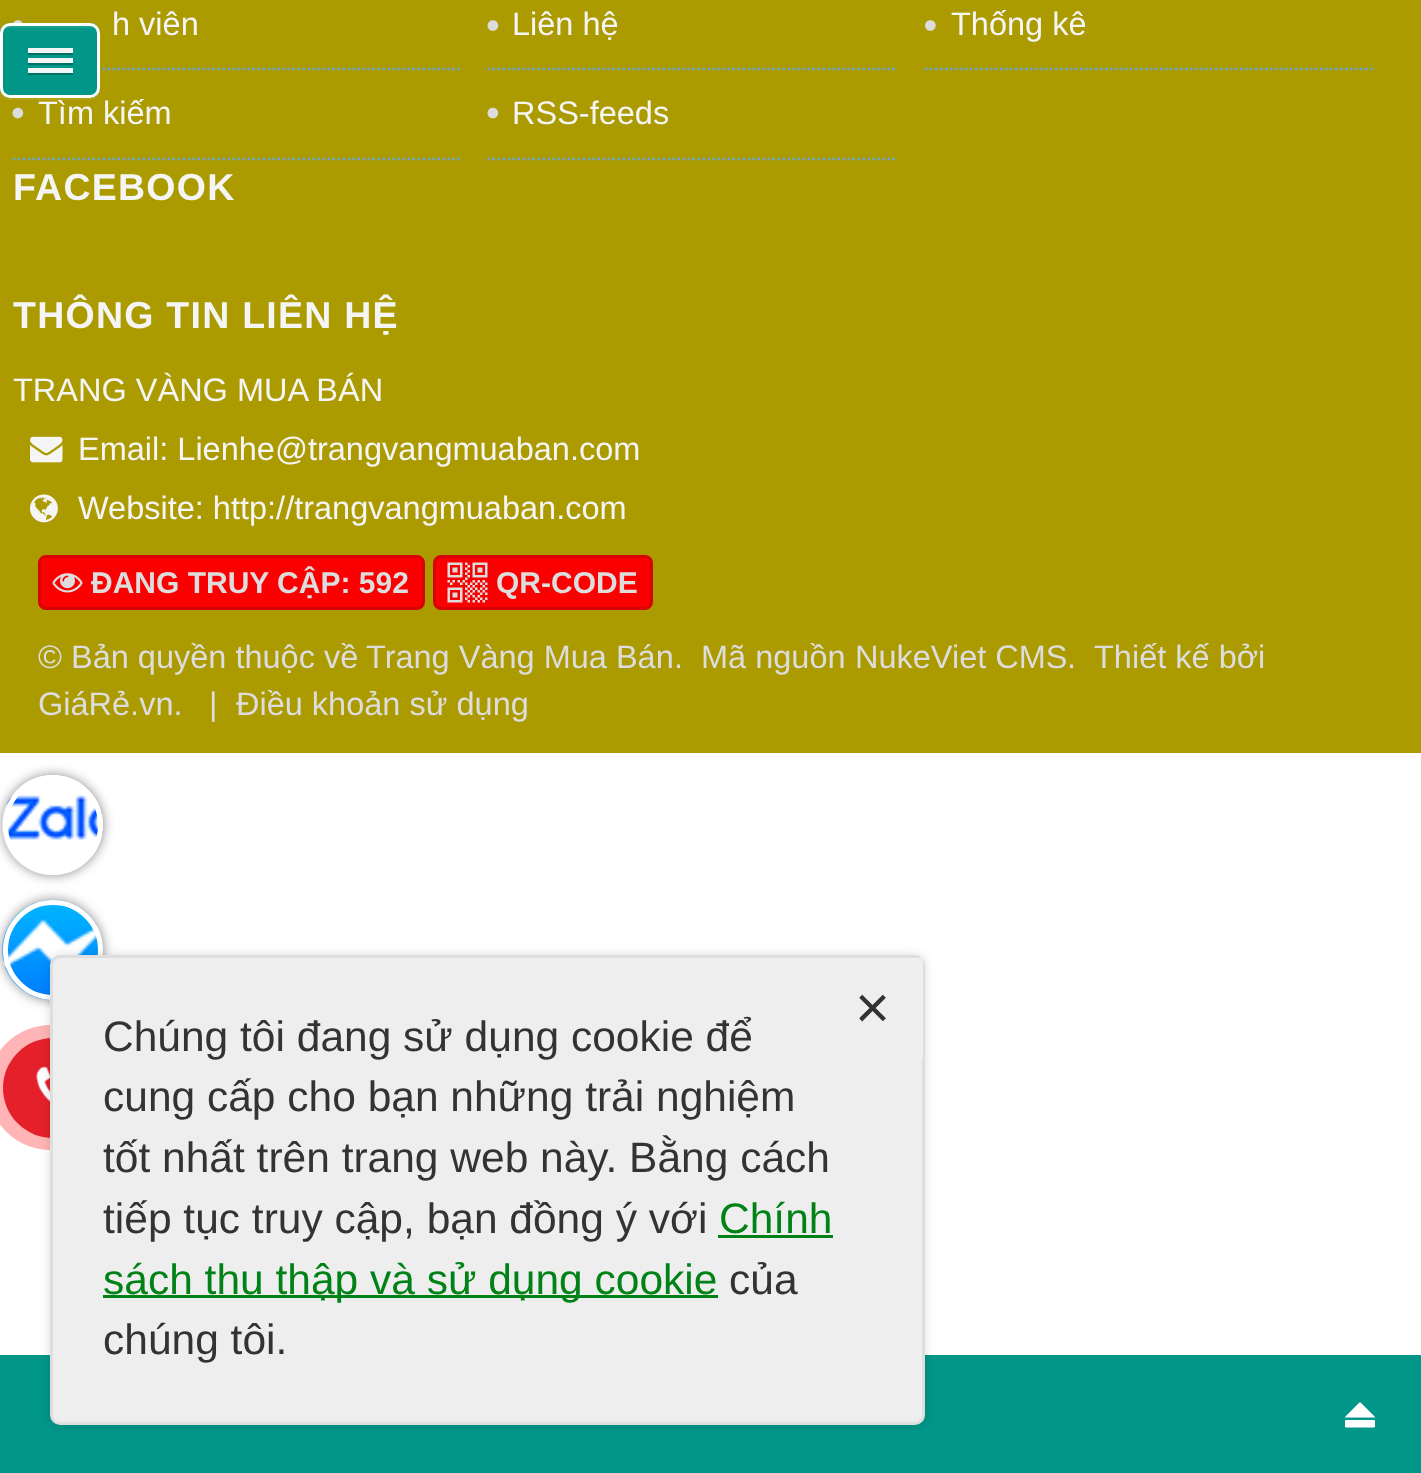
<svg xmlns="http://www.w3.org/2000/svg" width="1421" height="1473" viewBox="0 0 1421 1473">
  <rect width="100%" height="100%" fill="#fff"/>
  <path d="M0 0h1421v753H0z" fill="#ab9a00"/>
  <path d="M12.5 69H460" fill="none" stroke="#6aa3d5" stroke-width="2.5" stroke-dasharray="2.5 2.5"/>
  <image x="13" y="20" width="10" height="3" href="img/1.png"/>
  <path d="M487.5 69H895" fill="none" stroke="#6aa3d5" stroke-width="2.5" stroke-dasharray="2.5 2.5"/>
  <image x="487" y="20" width="12" height="11" href="img/2.png"/>
  <path d="M925 69H1372.5" fill="none" stroke="#6aa3d5" stroke-width="2.5" stroke-dasharray="2.5 2.5"/>
  <image x="925" y="20" width="11" height="11" href="img/3.png"/>
  <path d="M12.5 159H460" fill="none" stroke="#6aa3d5" stroke-width="2.5" stroke-dasharray="2.5 2.5"/>
  <image x="12" y="107" width="12" height="12" href="img/4.png"/>
  <path d="M487.5 159H895" fill="none" stroke="#6aa3d5" stroke-width="2.5" stroke-dasharray="2.5 2.5"/>
  <image x="487" y="107" width="12" height="12" href="img/4.png"/>
  <image x="30" y="436" width="33" height="27" href="img/5.png"/>
  <image x="30" y="494" width="28" height="29" href="img/6.png"/>
  <rect x="3" y="775" width="100" height="100" rx="50" fill="#888" filter="blur(6px)"/>
  <image x="2" y="775" width="101" height="100" href="img/7.png"/>
  <circle cx="53" cy="825" r="47.5" fill="none" stroke="#fff" stroke-width="5"/>
  <rect x="3" y="900" width="100" height="100" rx="50" fill="#888" filter="blur(6px)"/>
  <image x="2" y="900" width="101" height="100" href="img/8.png"/>
  <circle cx="53" cy="950" r="47.5" fill="none" stroke="#fff" stroke-width="5"/>
  <circle cx="50.5" cy="1087.5" r="62.5" fill="#ffb5b5"/>
  <circle cx="53" cy="1088" r="50" fill="#e4212a"/>
  <image x="36" y="1066" width="14" height="36" href="img/9.png"/>
  <rect x="39.5" y="556.5" width="384" height="52" rx="6.5" fill="#fa0000" stroke="#d70404" stroke-width="3"/>
  <image x="52" y="573" width="31" height="20" href="img/10.png"/>
  <rect x="434.5" y="556.5" width="217" height="52" rx="6.5" fill="#fa0000" stroke="#d70404" stroke-width="3"/>
  <image x="447" y="562" width="41" height="41" href="img/11.png"/>
  <path d="M0 1355h1421v118H0z" fill="#009688"/>
  <rect x="50" y="955" width="875" height="470" rx="10" fill="#00000026" filter="blur(5px)"/>
  <rect x="51.5" y="956.5" width="872" height="467" rx="8.5" fill="#eee" stroke="#dedede" stroke-width="3"/>
  <path d="M916 958h7v100H916z" fill="#efefef"/>
  <path d="M718 1235h115v3H718z" fill="#008216"/>
  <path d="M103 1295h615v3H103z" fill="#008216"/>
  <image x="1345" y="1402" width="30" height="26" href="img/12.png"/>
  <g font-family="Liberation Sans" font-size="32.5" fill="#f5f5f5">
    <text x="112" y="35">h viên</text>
    <text x="512" y="35">Liên hệ</text>
    <text x="951" y="35">Thống kê</text>
    <text x="38" y="124">Tìm kiếm</text>
    <text x="512" y="124">RSS-feeds</text>
  </g>
  <g font-family="Liberation Sans" font-size="37.5" font-weight="bold" letter-spacing="1.25" fill="#f5f5f5">
    <text x="13" y="200">FACEBOOK</text>
    <text x="13" y="328">THÔNG TIN LIÊN HỆ</text>
  </g>
  <g font-family="Liberation Sans" font-size="32.5" fill="#f5f5f5">
    <text x="13" y="401">TRANG VÀNG MUA BÁN</text>
    <text x="78" y="460">Email: Lienhe@trangvangmuaban.com</text>
    <text x="78" y="519">Website: http://trangvangmuaban.com</text>
  </g>
  <g font-family="Liberation Sans" font-size="30" font-weight="bold" fill="#ddd">
    <text x="91" y="593">ĐANG TRUY CẬP: 592</text>
    <text x="496" y="593">QR-CODE</text>
  </g>
  <g font-family="Liberation Sans" font-size="32.5" fill="#ddd">
    <text x="38" y="668">© Bản quyền thuộc về</text>
    <text x="366" y="668">Trang Vàng Mua Bán</text>
    <text x="674" y="668">.</text>
    <text x="701" y="668">Mã nguồn</text>
    <text x="855" y="668">NukeViet CMS</text>
    <text x="1067" y="668">.</text>
    <text x="1094" y="668">Thiết kế bởi</text>
    <text x="38" y="715">GiáRẻ.vn.</text>
    <text x="209" y="715">|</text>
    <text x="236" y="715">Điều khoản sử dụng</text>
  </g>
  <path d="M0 88C0 103 11 100 23 100H77C89 100 100 103 100 88C100 93 96 98 90 98H10C4 98 0 93 0 88Z" fill="#b2a214"/>
  <rect y="23" width="100" height="75" rx="10" fill="#009688"/>
  <path d="M10 28H90C94 28 98 31 98 35V33C98 29 94 25 90 25H11C7 25 4 28 3 31C5 29 7 28 10 28Z" fill="#1aa194"/>
  <rect x="1.5" y="24.5" width="97" height="72" rx="8.5" fill="none" stroke="#fff" stroke-width="3"/>
  <path d="M28 52V55H73V50H72V52Z" fill="#007166"/>
  <path d="M28 48h45v5H28z" fill="#f5f5f5"/>
  <path d="M28 62V65H73V60H72V62Z" fill="#007166"/>
  <path d="M28 58h45v5H28z" fill="#f5f5f5"/>
  <path d="M28 72V75H73V70H72V72Z" fill="#007166"/>
  <path d="M28 68h45v5H28z" fill="#f5f5f5"/>
  <text x="855" y="1028" font-family="Liberation Sans" font-size="60" fill="#333">×</text>
  <g font-family="Liberation Sans" font-size="42.5" fill="#333">
    <text x="103" y="1051">Chúng tôi đang sử dụng cookie để</text>
    <text x="103" y="1111">cung cấp cho bạn những trải nghiệm</text>
    <text x="103" y="1172">tốt nhất trên trang web này. Bằng cách</text>
    <text x="103" y="1233">tiếp tục truy cập, bạn đồng ý với</text>
  </g>
  <g font-family="Liberation Sans" font-size="42.5" fill="#008216">
    <text x="719" y="1233">Chính</text>
    <text x="103" y="1294">sách thu thập và sử dụng cookie</text>
  </g>
  <g font-family="Liberation Sans" font-size="42.5" fill="#333">
    <text x="729" y="1294">của</text>
    <text x="103" y="1354">chúng tôi.</text>
  </g>
</svg>
